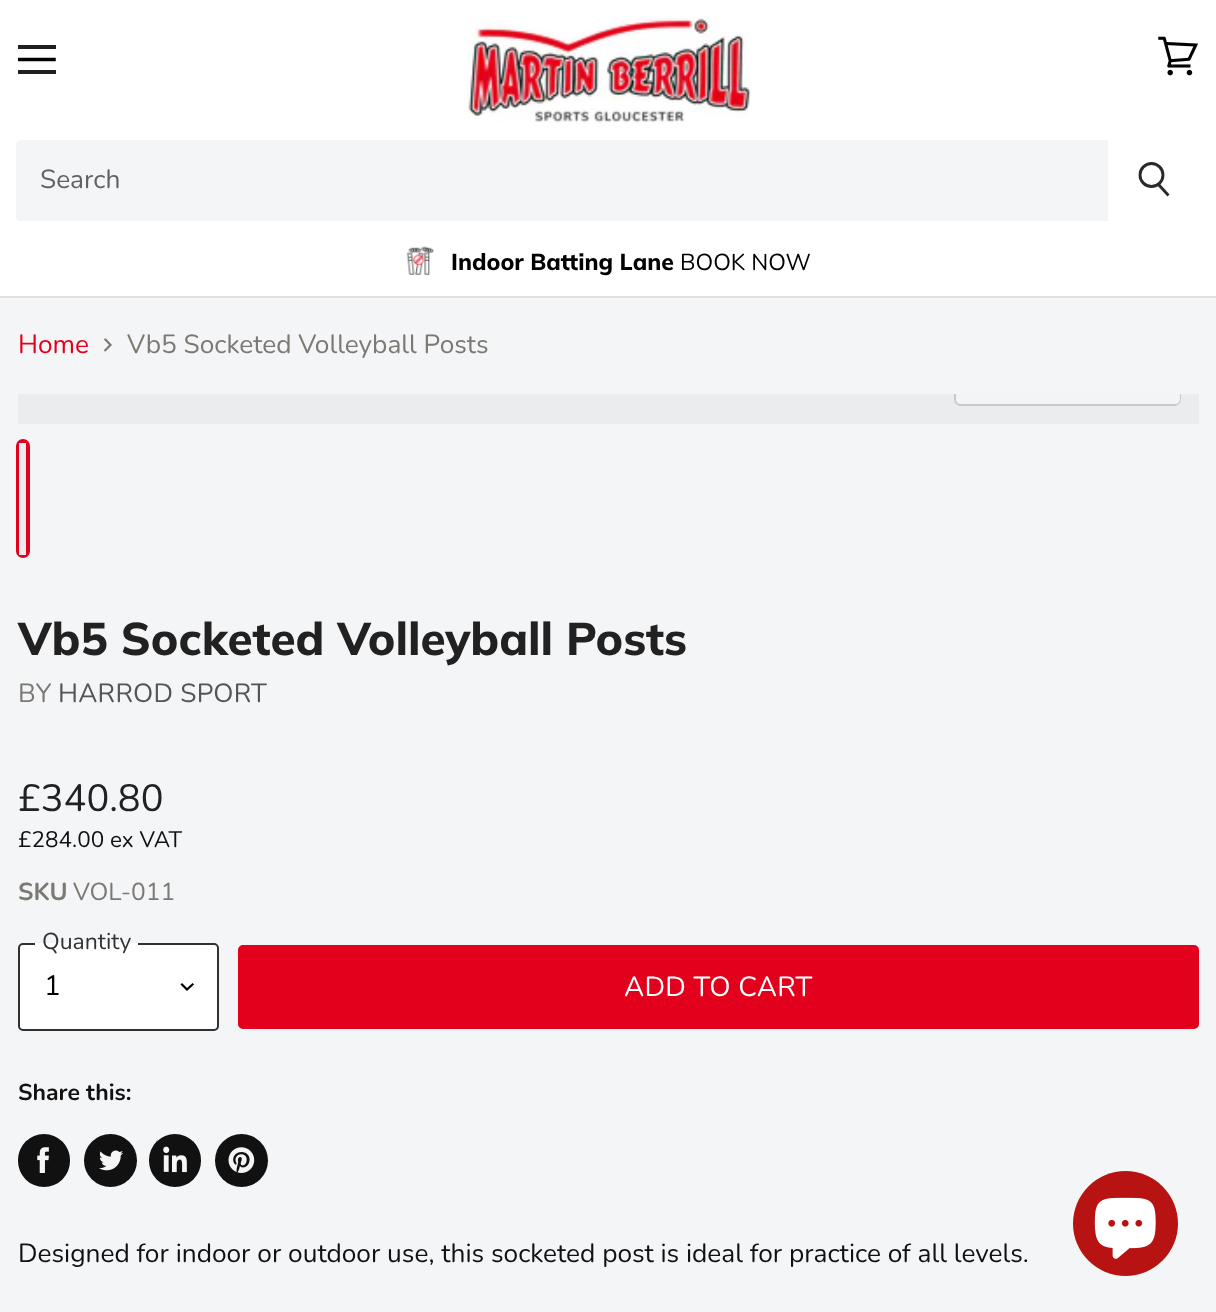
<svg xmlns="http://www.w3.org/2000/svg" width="1216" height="1312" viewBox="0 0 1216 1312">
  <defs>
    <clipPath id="clip1"><path d="M18 44h38v31H18z"/></clipPath>
    <clipPath id="clip2"><path d="M103.5 352.5V338.5H112V352.5Z"/></clipPath>
    <clipPath id="clip3"><path d="M18 394h1181v30H18z"/></clipPath>
  </defs>
  <rect width="100%" height="100%" fill="#f4f5f7"/>
  <path d="M0 0h1216v296H0z" fill="#fff"/>
  <path d="M0 296h1216v2H0z" fill="#dfdfdf"/>
  <path d="M18 45h38v4H18z" fill="#202020"/>
  <g clip-path="url(#clip1)">
    <path d="M54 59.5H19" fill="none" stroke="#000" stroke-width="3.5" stroke-linecap="square" stroke-linejoin="round"/>
  </g>
  <path d="M18 70h38v4H18z" fill="#202020"/>
  <image x="1158" y="36" width="40" height="40" href="img/1.png"/>
  <image x="467" y="17" width="284" height="106" href="img/2.png"/>
  <path d="M21 140H1108V221H21C18 221 16 219 16 216V145C16 142 18 140 21 140Z" fill="#f4f5f7"/>
  <path d="M1168.5 195.5L1158.5 184.5" fill="none" stroke="#2b2a29" stroke-width="2.9"/>
  <circle cx="1151.5" cy="175" r="11.5" fill="none" stroke="#2b2a29" stroke-width="2.9"/>
  <image x="406" y="246" width="28" height="29" href="img/3.png"/>
  <g clip-path="url(#clip2)">
    <path d="M104.5 351L110.5 345L104.5 338.5" fill="none" stroke="#7c7873" stroke-width="2.2"/>
  </g>
  <path d="M18 394h1181v30H18z" fill="#ebecee"/>
  <g clip-path="url(#clip3)">
    <rect x="955" y="356" width="225" height="49" rx="6" fill="none" stroke="#c8c9ca" stroke-width="2"/>
  </g>
  <path d="M956 394H1180V399C1180 402 1178 404 1175 404H961C958 404 956 402 956 399Z" fill="#f4f5f7e6"/>
  <rect x="18" y="441" width="10" height="115" rx="5" fill="none" stroke="#e3001c" stroke-width="4"/>
  <path d="M19 443h7v112H19z" fill="#ebecee"/>
  <rect x="19" y="944" width="199" height="86" rx="4" fill="#fff" stroke="#313131" stroke-width="2"/>
  <path d="M35 943h103v2H35z" fill="#fff"/>
  <path d="M187 989.5L192.5 984.5M187 989.5L182 984.5" fill="none" stroke="#000" stroke-width="2.2" stroke-linecap="square"/>
  <rect x="239" y="946" width="959" height="82" rx="4" fill="#e3001c" stroke="#e3001c" stroke-width="2"/>
  <rect x="18" y="1134" width="52" height="53" rx="26" fill="#111"/>
  <image x="37" y="1147" width="12" height="26" href="img/4.png"/>
  <circle cx="110.5" cy="1160.5" r="26.5" fill="#111"/>
  <image x="99" y="1150" width="24" height="21" href="img/5.png"/>
  <rect x="149" y="1134" width="52" height="53" rx="26" fill="#111"/>
  <image x="163" y="1146" width="24" height="27" href="img/6.png"/>
  <circle cx="241.5" cy="1160.5" r="26.5" fill="#111"/>
  <image x="228" y="1147" width="27" height="26" href="img/7.png"/>
  <circle cx="1125.5" cy="1223.5" r="52.5" fill="#b71313"/>
  <image x="1094" y="1197" width="62" height="62" href="img/8.png"/>
  <text x="40" y="188" font-family="Nunito" font-size="26.25" fill="#626263">Search</text>
  <text x="451" y="270" font-family="Muli" font-size="23" font-weight="800" fill="#000">Indoor Batting Lane</text>
  <text x="680" y="270" font-family="Nunito" font-size="23" fill="#000">BOOK NOW</text>
  <text x="18" y="353" font-family="Nunito" font-size="26.25" fill="#e3001c">Home</text>
  <text x="127" y="353" font-family="Nunito" font-size="26.25" fill="#7c7873">Vb5 Socketed Volleyball Posts</text>
  <text x="18" y="655" font-family="Muli" font-size="45.7" font-weight="800" fill="#212121">Vb5 Socketed Volleyball Posts</text>
  <text x="18" y="702" font-family="Nunito" font-size="26.25" letter-spacing="0.25" fill="#7c7873">BY</text>
  <text x="58" y="702" font-family="Nunito" font-size="26.25" letter-spacing="0.25" fill="#555">HARROD SPORT</text>
  <text x="18" y="811" font-family="Nunito" font-size="38" fill="#212121">£340.80</text>
  <text x="18" y="847" font-family="Nunito" font-size="22.5" fill="#111">£284.00 ex VAT</text>
  <text x="18" y="900" font-family="Nunito" font-size="24.5" font-weight="bold" fill="#7c7873">SKU</text>
  <text x="73" y="900" font-family="Nunito" font-size="24.5" fill="#7c7873">VOL-011</text>
  <text x="42" y="949" font-family="Nunito" font-size="23" fill="#333">Quantity</text>
  <text x="44" y="995" font-family="Nunito" font-size="28" fill="#000">1</text>
  <text x="624" y="996" font-family="Nunito" font-size="27.75" letter-spacing="0.25" fill="#fff">ADD TO CART</text>
  <text x="18" y="1100" font-family="Nunito" font-size="23" font-weight="bold" fill="#111">Share this:</text>
  <text x="18" y="1262" font-family="Nunito" font-size="26.25" fill="#111">Designed for indoor or outdoor use, this socketed post is ideal for practice of all levels.</text>
</svg>
